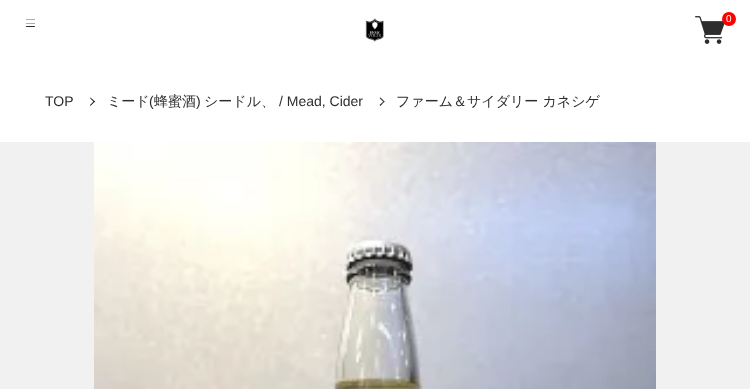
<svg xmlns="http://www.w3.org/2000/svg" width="750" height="389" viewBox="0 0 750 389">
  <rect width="100%" height="100%" fill="#fff"/>
  <path d="M26 19h9v1H26z" fill="#aeaeae"/>
  <path d="M26 23h9v1H26z" fill="#aeaeae"/>
  <rect x="26" y="26" width="9" height="1" rx="0.5" fill="#2d2d2d"/>
  <image x="365" y="18" width="19" height="24" href="img/1.png"/>
  <image x="695" y="16" width="30" height="28" href="img/2.png"/>
  <circle cx="729" cy="19" r="7" fill="#f00"/>
  <path d="M90.5 97.5L95 101.5L94 102.5L90 98Z" fill="#2d2d2d"/>
  <path d="M94 101L95 101.5L90.5 106L90 105Z" fill="#2d2d2d"/>
  <path d="M380.5 97.5L384.5 101.5L384 102.5L379.5 98Z" fill="#2d2d2d"/>
  <path d="M384 101L384.5 101.5L380.5 106L379.5 105Z" fill="#2d2d2d"/>
  <path d="M0 142h750v247H0z" fill="#f1f1f1"/>
  <image x="94" y="142" width="562" height="247" href="img/3.png"/>
  <text x="726" y="22" font-family="Liberation Sans" font-size="10" fill="#fff">0</text>
  <text x="45" y="106" font-family="Liberation Sans" font-size="14" fill="#2d2d2d">TOP</text>
  <text x="107" y="106" font-family="WenQuanYi Zen Hei" font-size="14" font-weight="500" fill="#2d2d2d">ミード</text>
  <text x="149" y="106" font-family="Liberation Sans" font-size="14" fill="#2d2d2d">(</text>
  <text x="154" y="106" font-family="WenQuanYi Zen Hei" font-size="14" font-weight="500" fill="#2d2d2d">蜂蜜酒</text>
  <text x="196" y="106" font-family="Liberation Sans" font-size="14" fill="#2d2d2d">)</text>
  <text x="204" y="106" font-family="WenQuanYi Zen Hei" font-size="14" font-weight="500" fill="#2d2d2d">シードル、</text>
  <text x="279" y="106" font-family="Liberation Sans" font-size="14" fill="#2d2d2d">/ Mead, Cider</text>
  <text x="396" y="106" font-family="WenQuanYi Zen Hei" font-size="14" font-weight="500" fill="#2d2d2d">ファーム＆サイダリー カネシゲ</text>
</svg>
